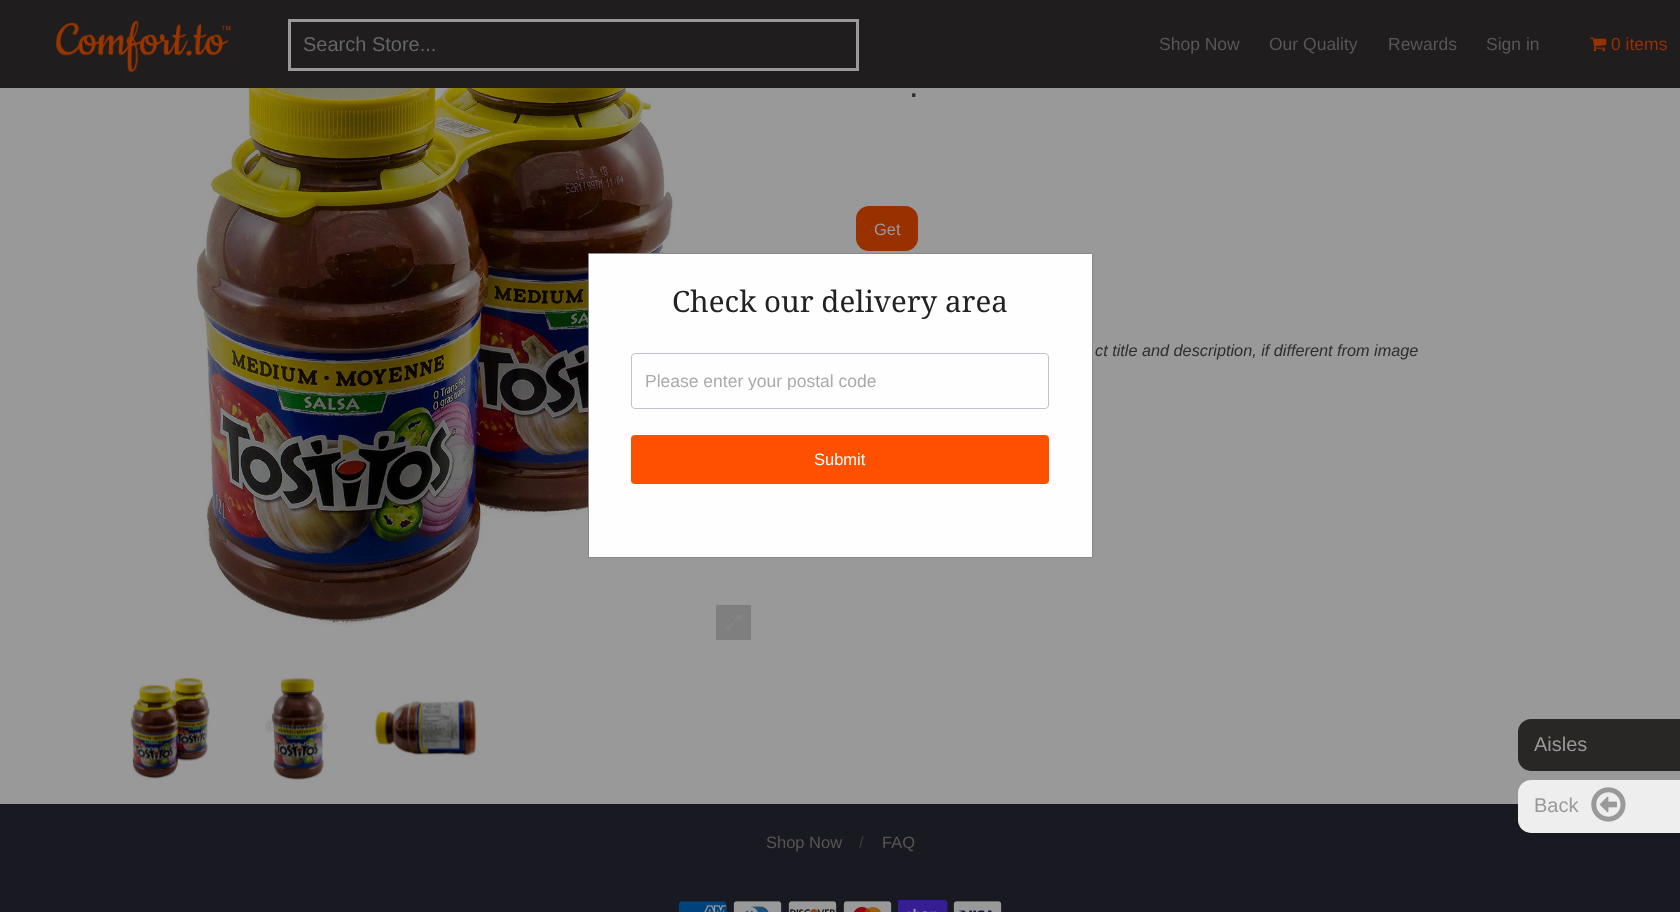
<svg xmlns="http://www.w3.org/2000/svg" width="1680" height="912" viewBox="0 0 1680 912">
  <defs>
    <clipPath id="clip1"><path d="M645 370h390v20H645z"/></clipPath>
  </defs>
  <rect width="100%" height="100%" fill="#181921"/>
  <path d="M0 0h1680v88H0z" fill="#1f1d1e"/>
  <image x="56" y="20" width="176" height="53" href="img/1.png"/>
  <path d="M289.5 20.5h568v49H289.5z" fill="none" stroke="#999" stroke-width="3"/>
  <image x="1590" y="37" width="17" height="15" href="img/2.png"/>
  <path d="M0 88h1680v716H0z" fill="#999"/>
  <image x="196" y="88" width="479" height="538" href="img/3.png"/>
  <path d="M588.5 253.5h504v304H588.5z" fill="#fefefe" stroke="#888"/>
  <rect x="631.5" y="353.5" width="417" height="55" rx="3.5" fill="none" stroke="#bcc3ca"/>
  <rect x="631" y="435" width="418" height="49" rx="4" fill="#ff5000"/>
  <path d="M716 605h35v35H716z" fill="#7f7f7f"/>
  <image x="726" y="615" width="15" height="15" href="img/4.png"/>
  <image x="130" y="677" width="80" height="102" href="img/5.png"/>
  <image x="265" y="677" width="63" height="103" href="img/6.png"/>
  <image x="374" y="699" width="103" height="57" href="img/7.png"/>
  <rect x="856" y="206" width="62" height="45" rx="13" fill="#993000"/>
  <path d="M1531 719H1680V771H1531C1524 771 1518 765 1518 758V732C1518 725 1524 719 1531 719Z" fill="#292626"/>
  <path d="M1531 780H1680V833H1531C1524 833 1518 827 1518 820V793C1518 786 1524 780 1531 780Z" fill="#eee"/>
  <image x="1591" y="787" width="35" height="35" href="img/8.png"/>
  <image x="678" y="901" width="49" height="11" href="img/9.png"/>
  <image x="733" y="901" width="49" height="11" href="img/10.png"/>
  <image x="788" y="901" width="49" height="11" href="img/11.png"/>
  <image x="843" y="901" width="49" height="11" href="img/12.png"/>
  <image x="898" y="900" width="50" height="12" href="img/13.png"/>
  <image x="953" y="901" width="49" height="11" href="img/14.png"/>
  <text x="303" y="51" font-family="Liberation Sans" font-size="20" fill="#666">Search Store...</text>
  <g font-family="Liberation Sans" font-size="17.5" fill="#5a5655">
    <text x="1159" y="50">Shop Now</text>
    <text x="1269" y="50">Our Quality</text>
    <text x="1388" y="50">Rewards</text>
    <text x="1486" y="50">Sign in</text>
  </g>
  <text x="1611" y="50" font-family="Liberation Sans" font-size="17.5" fill="#993000">0 items</text>
  <text x="672" y="312" font-family="Droid Serif" font-size="29.5" fill="#222">Check our delivery area</text>
  <g clip-path="url(#clip1)">
    <text x="645" y="387" font-family="Liberation Sans" font-size="17.5" fill="#aaa">Please enter your postal code</text>
  </g>
  <text x="814" y="465" font-family="Liberation Sans" font-size="16.5" fill="#fff">Submit</text>
  <text x="909" y="97" font-family="Liberation Sans" font-size="34" letter-spacing="-1" fill="#2f2c2c">.</text>
  <text x="874" y="235" font-family="Liberation Sans" font-size="16.5" fill="#999">Get</text>
  <text x="1095" y="356" font-family="Liberation Sans" font-size="16.25" font-style="italic" fill="#2f2c2c">ct title and description, if different from image</text>
  <g font-family="Liberation Sans" font-size="20" fill="#999">
    <text x="1534" y="751">Aisles</text>
    <text x="1534" y="812">Back</text>
  </g>
  <text x="766" y="848" font-family="Liberation Sans" font-size="16.5" fill="#5a5655">Shop Now</text>
  <text x="859" y="848" font-family="Liberation Sans" font-size="16.5" fill="#3c3a3c">/</text>
  <text x="882" y="848" font-family="Liberation Sans" font-size="16.5" fill="#5a5655">FAQ</text>
</svg>
